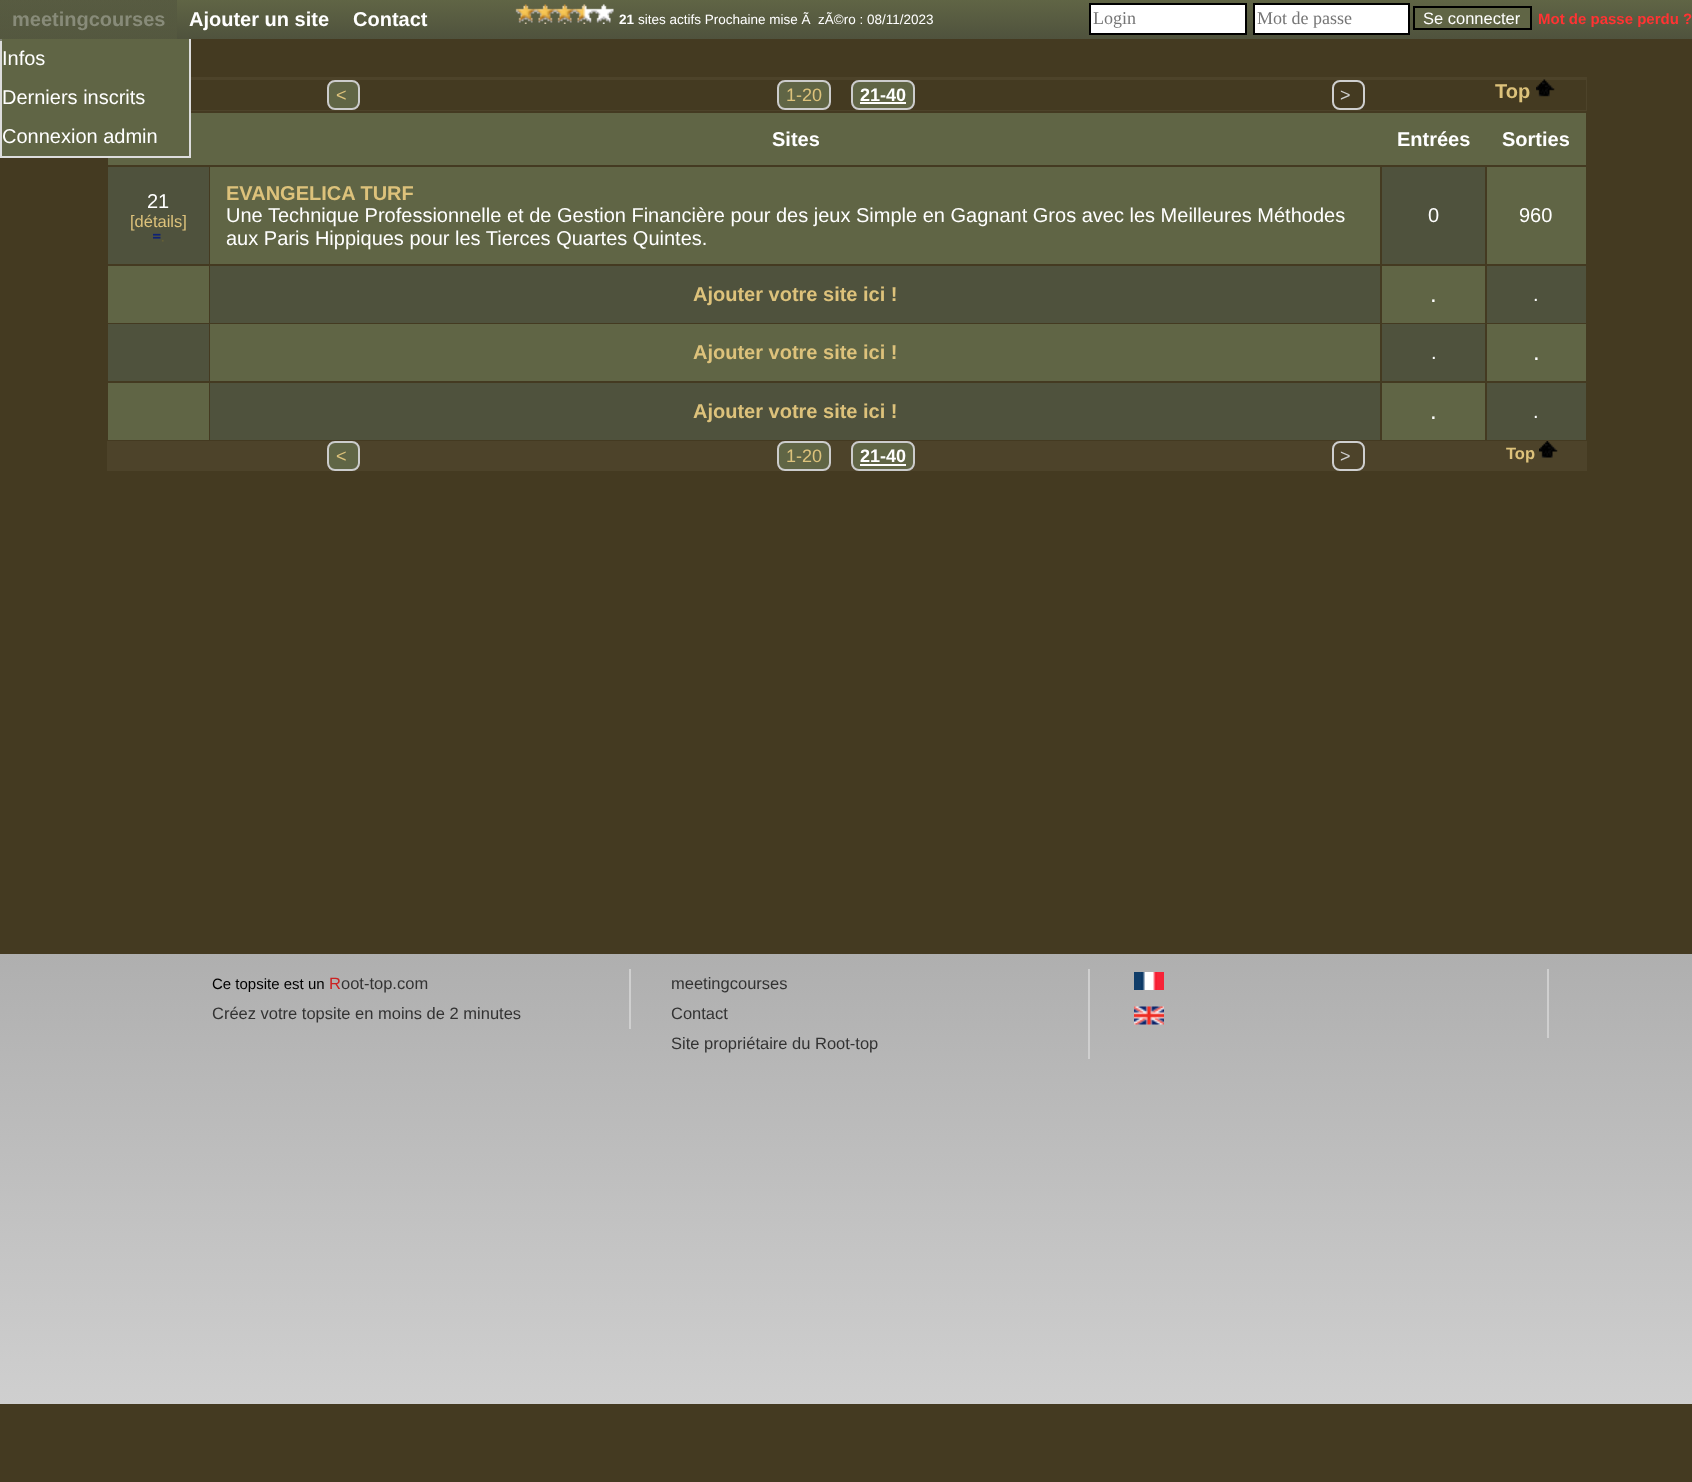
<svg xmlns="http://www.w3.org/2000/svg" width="1692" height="1482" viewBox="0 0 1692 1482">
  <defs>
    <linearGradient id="g1" gradientUnits="userSpaceOnUse" x1="0" y1="0" x2="0" y2="39"><stop offset="0" stop-color="#606545"/><stop offset="1" stop-color="#4f523d"/></linearGradient>
    <linearGradient id="g2" gradientUnits="userSpaceOnUse" x1="0" y1="0" x2="0" y2="39"><stop offset="0" stop-color="#5b5f43"/><stop offset="1" stop-color="#4f523d"/></linearGradient>
    <linearGradient id="g3" gradientUnits="userSpaceOnUse" x1="0" y1="0" x2="0" y2="39"><stop offset="0" stop-color="#4f523d" stop-opacity="0.3"/><stop offset="1" stop-color="#606545" stop-opacity="0.3"/></linearGradient>
    <linearGradient id="g4" gradientUnits="userSpaceOnUse" x1="0" y1="39" x2="0" y2="78"><stop offset="0" stop-color="#4f523d" stop-opacity="0.3"/><stop offset="1" stop-color="#5b5f43" stop-opacity="0.3"/></linearGradient>
    <linearGradient id="g5" gradientUnits="userSpaceOnUse" x1="177" y1="0" x2="177" y2="39"><stop offset="0" stop-color="#606545"/><stop offset="1" stop-color="#4f523d"/></linearGradient>
    <linearGradient id="g6" gradientUnits="userSpaceOnUse" x1="342" y1="0" x2="342" y2="39"><stop offset="0" stop-color="#606545"/><stop offset="1" stop-color="#4f523d"/></linearGradient>
    <linearGradient id="g7" gradientUnits="userSpaceOnUse" x1="440" y1="0" x2="440" y2="39"><stop offset="0" stop-color="#606545"/><stop offset="1" stop-color="#4f523d"/></linearGradient>
    <linearGradient id="g8" gradientUnits="userSpaceOnUse" x1="515" y1="0" x2="515" y2="39"><stop offset="0" stop-color="#606545"/><stop offset="1" stop-color="#4f523d"/></linearGradient>
    <linearGradient id="g9" gradientUnits="userSpaceOnUse" x1="933" y1="0" x2="933" y2="39"><stop offset="0" stop-color="#606545"/><stop offset="1" stop-color="#4f523d"/></linearGradient>
    <linearGradient id="g10" gradientUnits="userSpaceOnUse" x1="1086" y1="0" x2="1086" y2="39"><stop offset="0" stop-color="#606545"/><stop offset="1" stop-color="#4f523d"/></linearGradient>
    <linearGradient id="g11" gradientUnits="userSpaceOnUse" x1="0" y1="954" x2="0" y2="1404"><stop offset="0" stop-color="#afafaf"/><stop offset="1" stop-color="#cfcfcf"/></linearGradient>
  </defs>
  <rect width="100%" height="100%" fill="#443a21"/>
  <path d="M1008 0h78v39H1008z" fill="url(#g1)"/>
  <path d="M0 0h177v39H0z" fill="url(#g2)"/>
  <path d="M0 0h177v39H0z" fill="url(#g3)"/>
  <path d="M108 113h1478v52H108z" fill="#606545"/>
  <path d="M189 39h2v119H189z" fill="#ddd"/>
  <path d="M0 156h191v2H0z" fill="#ddd"/>
  <path d="M0 39h2v119H0z" fill="#ddd"/>
  <path d="M0 39h2v2H0z" fill="#94968b"/>
  <path d="M0 39h2v2H0z" fill="url(#g4)"/>
  <path d="M2 39h187v78H2z" fill="#606545"/>
  <path d="M2 117h106v39H2z" fill="#606545"/>
  <path d="M177 0h165v39H177z" fill="url(#g5)"/>
  <path d="M342 0h98v39H342z" fill="url(#g6)"/>
  <path d="M440 0h75v39H440z" fill="url(#g7)"/>
  <path d="M515 0h418v39H515z" fill="url(#g8)"/>
  <image x="515" y="4" width="99" height="20" href="img/1.png"/>
  <path d="M933 0h75v39H933z" fill="url(#g9)"/>
  <path d="M1086 0h606v39H1086z" fill="url(#g10)"/>
  <path d="M1090 4h156v30H1090z" fill="#fff" stroke="#000" stroke-width="2"/>
  <path d="M1254 4h155v30H1254z" fill="#fff" stroke="#000" stroke-width="2"/>
  <path d="M1414 7h117v22H1414z" fill="#606545" stroke="#000" stroke-width="2"/>
  <path d="M191 77h1396v34H191z" fill="#4d432a"/>
  <path d="M191 80h1395v30H191z" fill="#443a21"/>
  <rect x="328" y="81" width="31" height="28" rx="7" fill="#606545" stroke="#ccc" stroke-width="2"/>
  <rect x="778" y="81" width="52" height="28" rx="7" fill="#606545" stroke="#ccc" stroke-width="2"/>
  <rect x="852" y="81" width="62" height="28" rx="7" fill="#606545" stroke="#ccc" stroke-width="2"/>
  <path d="M860 102h46v2H860z" fill="#fff"/>
  <rect x="1333" y="81" width="31" height="28" rx="7" fill="none" stroke="#cfcfcf" stroke-width="2"/>
  <image x="1536" y="79" width="19" height="18" href="img/2.png"/>
  <path d="M108 167h101v97H108z" fill="#4f523d"/>
  <image x="153" y="233" width="11" height="9" href="img/3.png"/>
  <path d="M210 167h1170v97H210z" fill="#606545"/>
  <path d="M1382 167h103v97H1382z" fill="#4f523d"/>
  <path d="M1487 167h99v97H1487z" fill="#606545"/>
  <path d="M108 266h101v57H108z" fill="#606545"/>
  <path d="M210 266h1170v57H210z" fill="#4f523d"/>
  <path d="M1382 266h103v57H1382z" fill="#606545"/>
  <path d="M1487 266h99v57H1487z" fill="#4f523d"/>
  <path d="M108 324h101v57H108z" fill="#4f523d"/>
  <path d="M210 324h1170v57H210z" fill="#606545"/>
  <path d="M1382 324h103v57H1382z" fill="#4f523d"/>
  <path d="M1487 324h99v57H1487z" fill="#606545"/>
  <path d="M108 383h101v57H108z" fill="#606545"/>
  <path d="M210 383h1170v57H210z" fill="#4f523d"/>
  <path d="M1382 383h103v57H1382z" fill="#606545"/>
  <path d="M1487 383h99v57H1487z" fill="#4f523d"/>
  <path d="M107 441h1480v30H107z" fill="#4d432a"/>
  <rect x="328" y="442" width="31" height="28" rx="7" fill="#606545" stroke="#ccc" stroke-width="2"/>
  <rect x="778" y="442" width="52" height="28" rx="7" fill="#606545" stroke="#ccc" stroke-width="2"/>
  <rect x="852" y="442" width="62" height="28" rx="7" fill="#606545" stroke="#ccc" stroke-width="2"/>
  <path d="M860 464h46v2H860z" fill="#fff"/>
  <rect x="1333" y="442" width="31" height="28" rx="7" fill="none" stroke="#cfcfcf" stroke-width="2"/>
  <image x="1539" y="441" width="19" height="17" href="img/4.png"/>
  <path d="M0 954h1692v450H0z" fill="url(#g11)"/>
  <path d="M629 969h2v60H629z" fill="#cfcfcf"/>
  <path d="M1088 969h2v90H1088z" fill="#cfcfcf"/>
  <path d="M1547 969h2v69H1547z" fill="#cfcfcf"/>
  <image x="1134" y="972" width="30" height="18" href="img/5.png"/>
  <image x="1134" y="1006" width="30" height="19" href="img/6.png"/>
  <text x="12" y="26" font-family="Liberation Sans" font-size="20" font-weight="bold" fill="#888b79">meetingcourses</text>
  <g font-family="Liberation Sans" font-size="20" fill="#fff">
    <text x="2" y="65">Infos</text>
    <text x="2" y="104">Derniers inscrits</text>
    <text x="2" y="143">Connexion admin</text>
  </g>
  <g font-family="Liberation Sans" font-size="20" font-weight="bold" fill="#fff">
    <text x="189" y="26">Ajouter un site</text>
    <text x="353" y="26">Contact</text>
  </g>
  <text x="619" y="24" font-family="Liberation Sans" font-size="13.5" font-weight="bold" fill="#fff">21</text>
  <text x="638" y="24" font-family="Liberation Sans" font-size="13.5" fill="#fff" xml:space="preserve">sites actifs Prochaine mise Ã  zÃ©ro : 08/11/2023</text>
  <g font-family="Liberation Serif" font-size="18" fill="#757575">
    <text x="1093" y="24">Login</text>
    <text x="1257" y="24">Mot de passe</text>
  </g>
  <text x="1423" y="24" font-family="Liberation Sans" font-size="16.5" fill="#fff">Se connecter</text>
  <text x="1538" y="24" font-family="Liberation Sans" font-size="15" font-weight="bold" fill="#f33">Mot de passe perdu ?</text>
  <g font-family="Liberation Sans" font-size="18" fill="#ddc27b">
    <text x="336" y="101">&lt;</text>
    <text x="786" y="101">1-20</text>
  </g>
  <text x="860" y="101" font-family="Liberation Sans" font-size="18" font-weight="bold" fill="#fff">21-40</text>
  <text x="1340" y="101" font-family="Liberation Sans" font-size="18" fill="#cfcfcf">&gt;</text>
  <text x="1495" y="98" font-family="Liberation Sans" font-size="20" font-weight="bold" fill="#ddc27b">Top</text>
  <g font-family="Liberation Sans" font-size="20" font-weight="bold" fill="#fff">
    <text x="772" y="146">Sites</text>
    <text x="1397" y="146">Entrées</text>
    <text x="1502" y="146">Sorties</text>
  </g>
  <text x="147" y="208" font-family="Liberation Sans" font-size="20" fill="#fff">21</text>
  <text x="130" y="227" font-family="Liberation Sans" font-size="16.5" fill="#ddc27b">[détails]</text>
  <text x="226" y="200" font-family="Liberation Sans" font-size="20" font-weight="bold" fill="#ddc27b">EVANGELICA TURF</text>
  <g font-family="Liberation Sans" font-size="20" fill="#fff">
    <text x="226" y="222">Une Technique Professionnelle et de Gestion Financière pour des jeux Simple en Gagnant Gros avec les Meilleures Méthodes</text>
    <text x="226" y="245">aux Paris Hippiques pour les Tierces Quartes Quintes.</text>
    <text x="1428" y="222">0</text>
    <text x="1519" y="222">960</text>
  </g>
  <text x="693" y="301" font-family="Liberation Sans" font-size="20" font-weight="bold" fill="#ddc27b">Ajouter votre site ici !</text>
  <text x="1430" y="302" font-family="Liberation Sans" font-size="24" fill="#fff">.</text>
  <text x="1533" y="301" font-family="Liberation Sans" font-size="20" fill="#fff">.</text>
  <text x="693" y="359" font-family="Liberation Sans" font-size="20" font-weight="bold" fill="#ddc27b">Ajouter votre site ici !</text>
  <text x="1431" y="359" font-family="Liberation Sans" font-size="20" fill="#fff">.</text>
  <text x="1533" y="360" font-family="Liberation Sans" font-size="24" fill="#fff">.</text>
  <text x="693" y="418" font-family="Liberation Sans" font-size="20" font-weight="bold" fill="#ddc27b">Ajouter votre site ici !</text>
  <text x="1430" y="419" font-family="Liberation Sans" font-size="24" fill="#fff">.</text>
  <text x="1533" y="418" font-family="Liberation Sans" font-size="20" fill="#fff">.</text>
  <g font-family="Liberation Sans" font-size="18" fill="#ddc27b">
    <text x="336" y="462">&lt;</text>
    <text x="786" y="462">1-20</text>
  </g>
  <text x="860" y="462" font-family="Liberation Sans" font-size="18" font-weight="bold" fill="#fff">21-40</text>
  <text x="1340" y="462" font-family="Liberation Sans" font-size="18" fill="#cfcfcf">&gt;</text>
  <text x="1506" y="459" font-family="Liberation Sans" font-size="16.5" font-weight="bold" fill="#ddc27b">Top</text>
  <text x="212" y="989" font-family="Liberation Sans" font-size="15" fill="#000">Ce topsite est un</text>
  <text x="329" y="989" font-family="Liberation Sans" font-size="16.5" fill="#c22">R</text>
  <g font-family="Liberation Sans" font-size="16.5" fill="#333">
    <text x="341" y="989">oot-top.com</text>
    <text x="212" y="1019">Créez votre topsite en moins de 2 minutes</text>
    <text x="671" y="989">meetingcourses</text>
    <text x="671" y="1019">Contact</text>
    <text x="671" y="1049">Site propriétaire du Root-top</text>
  </g>
</svg>
